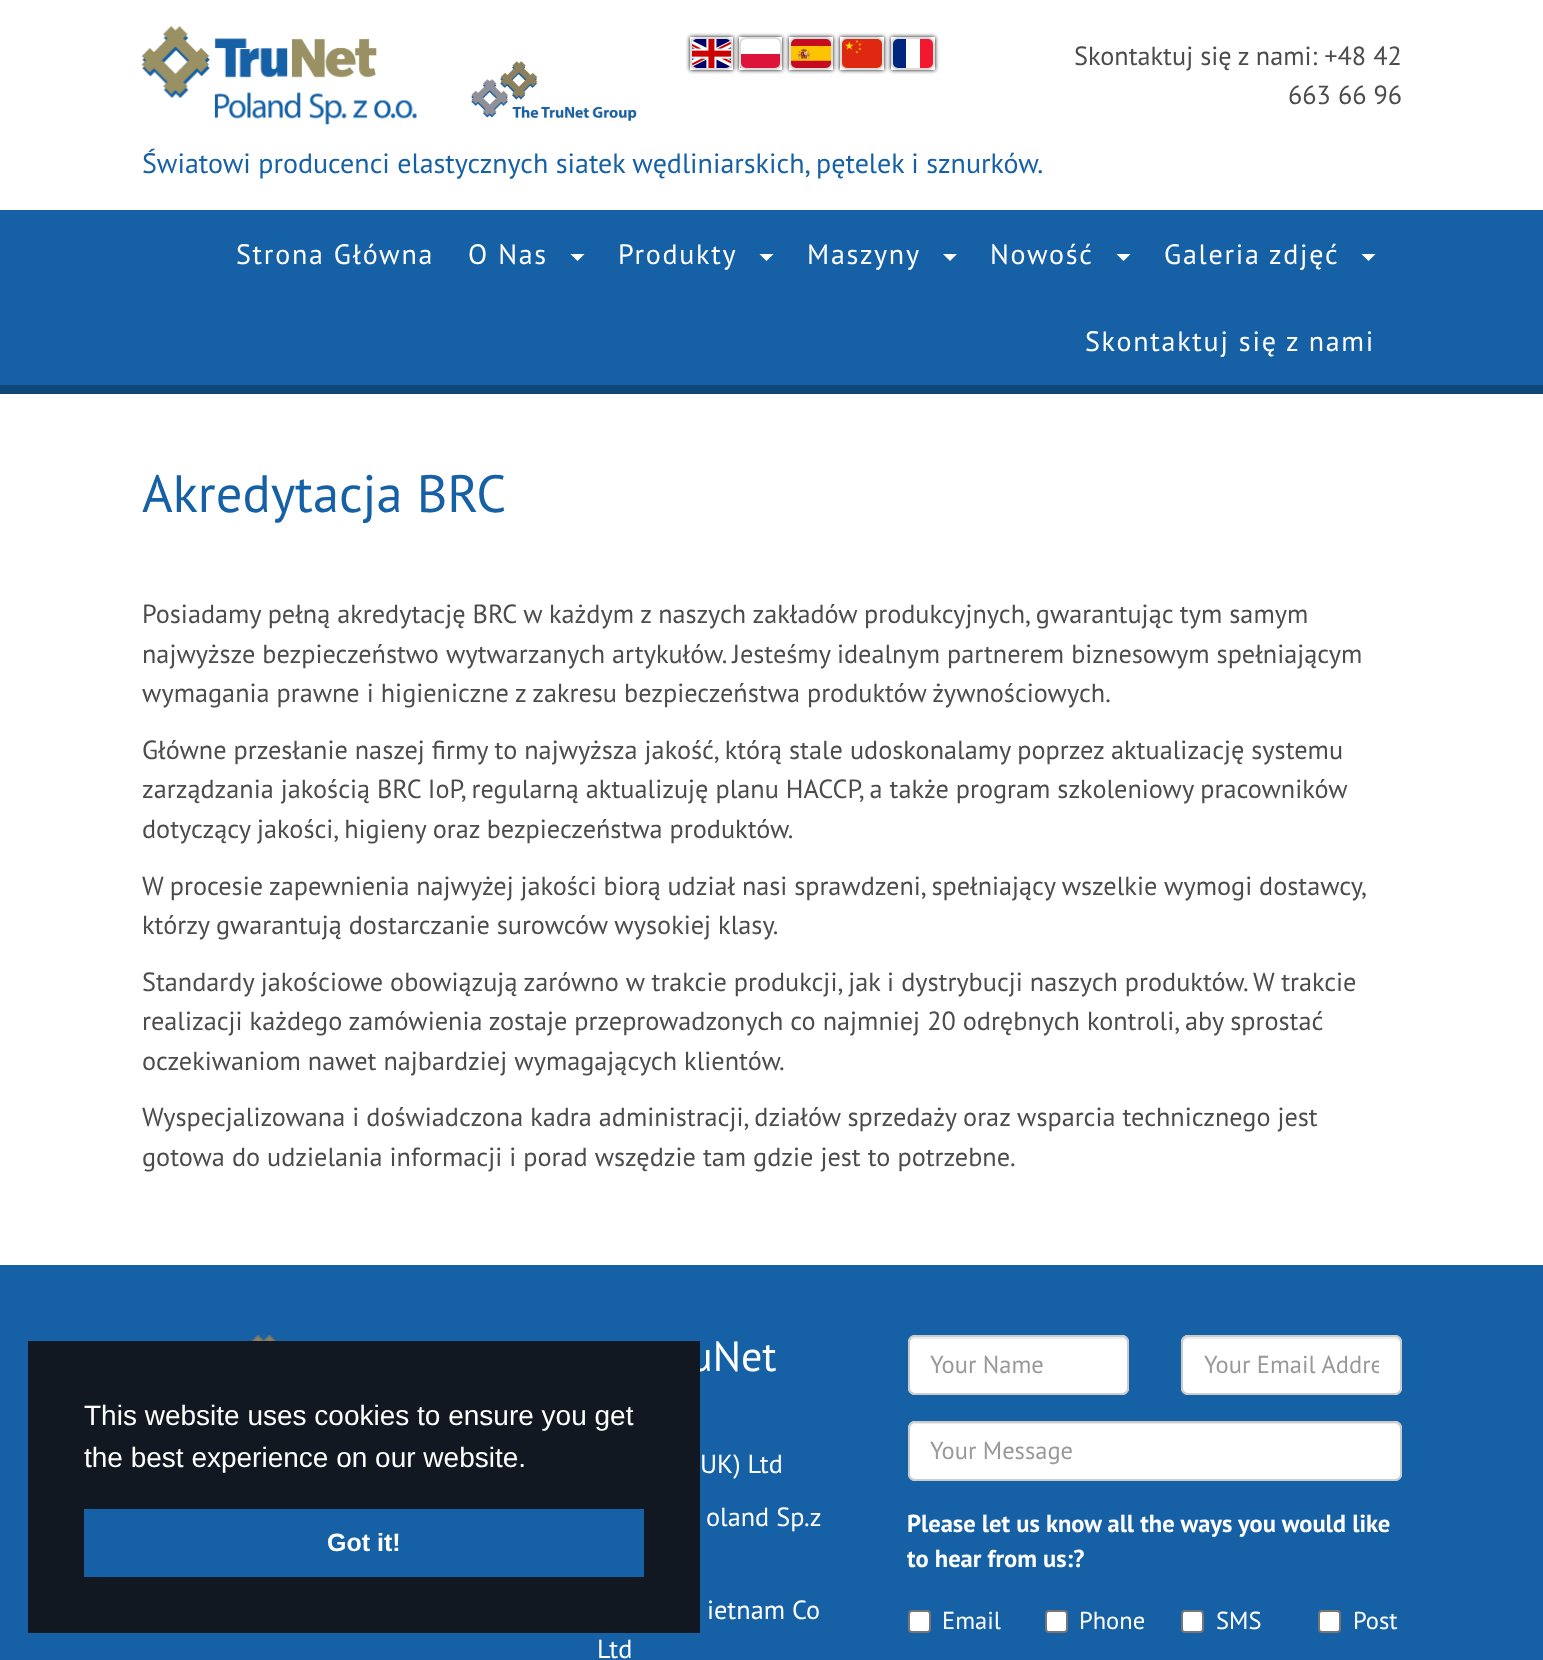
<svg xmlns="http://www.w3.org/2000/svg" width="1543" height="1660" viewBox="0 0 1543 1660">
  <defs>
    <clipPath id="clip1"><path d="M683 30H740V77H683ZM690 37H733V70H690Z" clip-rule="evenodd"/></clipPath>
    <clipPath id="clip2"><path d="M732 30H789V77H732ZM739 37H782V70H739Z" clip-rule="evenodd"/></clipPath>
    <clipPath id="clip3"><path d="M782 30H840V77H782ZM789 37H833V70H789Z" clip-rule="evenodd"/></clipPath>
    <clipPath id="clip4"><path d="M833 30H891V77H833ZM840 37H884V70H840Z" clip-rule="evenodd"/></clipPath>
    <clipPath id="clip5"><path d="M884 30H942V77H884ZM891 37H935V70H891Z" clip-rule="evenodd"/></clipPath>
    <clipPath id="clip6"><path d="M1204 1349h175v32H1204z"/></clipPath>
  </defs>
  <rect width="100%" height="100%" fill="#fff"/>
  <image x="141" y="26" width="276" height="99" href="img/1.png"/>
  <image x="471" y="61" width="166" height="60" href="img/2.png"/>
  <g clip-path="url(#clip1)">
    <path d="M690 37h43v33H690z" fill="#000" filter="blur(2px)"/>
  </g>
  <image x="691" y="39" width="41" height="29" href="img/3.png"/>
  <rect x="691" y="38" width="41" height="31" rx="6" fill="none" stroke="#ddd" stroke-width="2"/>
  <g clip-path="url(#clip2)">
    <path d="M739 37h43v33H739z" fill="#000" filter="blur(2px)"/>
  </g>
  <path d="M740 54h40v14H740z" fill="#dc143c"/>
  <rect x="740" y="38" width="41" height="31" rx="6" fill="none" stroke="#ddd" stroke-width="2"/>
  <g clip-path="url(#clip3)">
    <path d="M789 37h44v33H789z" fill="#000" filter="blur(2px)"/>
  </g>
  <image x="791" y="39" width="40" height="29" href="img/4.png"/>
  <rect x="790" y="38" width="42" height="31" rx="6" fill="none" stroke="#ddd" stroke-width="2"/>
  <g clip-path="url(#clip4)">
    <path d="M840 37h44v33H840z" fill="#000" filter="blur(2px)"/>
  </g>
  <image x="842" y="39" width="40" height="29" href="img/5.png"/>
  <rect x="841" y="38" width="42" height="31" rx="6" fill="none" stroke="#ddd" stroke-width="2"/>
  <g clip-path="url(#clip5)">
    <path d="M891 37h44v33H891z" fill="#000" filter="blur(2px)"/>
  </g>
  <rect x="891" y="37" width="44" height="33" rx="7" fill="#fff"/>
  <path d="M893 39h13v29H893z" fill="#00267f"/>
  <path d="M920 39h13v29H920z" fill="#f31830"/>
  <rect x="892" y="38" width="42" height="31" rx="6" fill="none" stroke="#ddd" stroke-width="2"/>
  <path d="M0 210h1543v175H0z" fill="#1661a6"/>
  <path d="M0 385h1543v9H0z" fill="#104779"/>
  <path d="M570.5 254H584.5L577.5 261Z" fill="#fff"/>
  <path d="M759.5 254H773.5L766.5 261Z" fill="#fff"/>
  <path d="M943 254H957L950 261Z" fill="#fff"/>
  <path d="M1116.5 254H1130.5L1123.5 261Z" fill="#fff"/>
  <path d="M1361.5 254H1375.5L1368.5 261Z" fill="#fff"/>
  <path d="M0 1265h1543v395H0z" fill="#1661a6"/>
  <image x="250" y="1335" width="27" height="6" href="img/6.png"/>
  <rect x="908" y="1335" width="221" height="60" rx="7" fill="#fff"/>
  <path d="M915 1339H1122C1125 1339 1127 1341 1127 1344V1342C1127 1339 1125 1337 1122 1337H915C912 1337 910 1339 910 1342V1344C910 1341 912 1339 915 1339Z" fill="#ececec"/>
  <rect x="909" y="1336" width="219" height="58" rx="6" fill="none" stroke="#ccc" stroke-width="2"/>
  <rect x="1181" y="1335" width="221" height="60" rx="7" fill="#fff"/>
  <path d="M1188 1339H1395C1398 1339 1400 1341 1400 1344V1342C1400 1339 1398 1337 1395 1337H1188C1185 1337 1183 1339 1183 1342V1344C1183 1341 1185 1339 1188 1339Z" fill="#ececec"/>
  <rect x="1182" y="1336" width="219" height="58" rx="6" fill="none" stroke="#ccc" stroke-width="2"/>
  <rect x="908" y="1421" width="494" height="60" rx="7" fill="#fff"/>
  <path d="M915 1424H1395C1398 1424 1400 1427 1400 1430V1428C1400 1425 1398 1423 1395 1423H915C912 1423 910 1425 910 1428V1430C910 1427 912 1424 915 1424Z" fill="#ececec"/>
  <rect x="909" y="1422" width="492" height="58" rx="6" fill="none" stroke="#ccc" stroke-width="2"/>
  <rect x="909" y="1611" width="21" height="21" rx="3" fill="#fff" stroke="#767676" stroke-width="2"/>
  <rect x="1046" y="1611" width="21" height="21" rx="3" fill="#fff" stroke="#767676" stroke-width="2"/>
  <rect x="1182" y="1611" width="21" height="21" rx="3" fill="#fff" stroke="#767676" stroke-width="2"/>
  <rect x="1319" y="1611" width="21" height="21" rx="3" fill="#fff" stroke="#767676" stroke-width="2"/>
  <g font-family="PT Sans" font-size="26.25" fill="#4c4c4c">
    <text x="1074" y="65">Skontaktuj się z nami: +48 42</text>
    <text x="1288" y="104">663 66 96</text>
  </g>
  <text x="142" y="173" font-family="PT Sans" font-size="28" fill="#1661a6">Światowi producenci elastycznych siatek wędliniarskich, pętelek i sznurków.</text>
  <g font-family="PT Sans" font-size="28" letter-spacing="1.75" fill="#fff">
    <text x="236" y="264">Strona Główna</text>
    <text x="468" y="264">O Nas</text>
    <text x="618" y="264">Produkty</text>
    <text x="807" y="264">Maszyny</text>
    <text x="990" y="264">Nowość</text>
    <text x="1164" y="264">Galeria zdjęć</text>
    <text x="1085" y="351">Skontaktuj się z nami</text>
  </g>
  <text x="142" y="512" font-family="PT Sans" font-size="52.5" fill="#1661a6">Akredytacja BRC</text>
  <g font-family="PT Sans" font-size="26.25" fill="#4c4c4c">
    <text x="142" y="623">Posiadamy pełną akredytację BRC w każdym z naszych zakładów produkcyjnych, gwarantując tym samym</text>
    <text x="142" y="663">najwyższe bezpieczeństwo wytwarzanych artykułów. Jesteśmy idealnym partnerem biznesowym spełniającym</text>
    <text x="142" y="702">wymagania prawne i higieniczne z zakresu bezpieczeństwa produktów żywnościowych.</text>
    <text x="142" y="759">Główne przesłanie naszej firmy to najwyższa jakość, którą stale udoskonalamy poprzez aktualizację systemu</text>
    <text x="142" y="798">zarządzania jakością BRC IoP, regularną aktualizuję planu HACCP, a także program szkoleniowy pracowników</text>
    <text x="142" y="838">dotyczący jakości, higieny oraz bezpieczeństwa produktów.</text>
    <text x="142" y="895" word-spacing="-0.25">W procesie zapewnienia najwyżej jakości biorą udział nasi sprawdzeni, spełniający wszelkie wymogi dostawcy,</text>
    <text x="142" y="934">którzy gwarantują dostarczanie surowców wysokiej klasy.</text>
    <text x="142" y="991">Standardy jakościowe obowiązują zarówno w trakcie produkcji, jak i dystrybucji naszych produktów. W trakcie</text>
    <text x="142" y="1030">realizacji każdego zamówienia zostaje przeprowadzonych co najmniej 20 odrębnych kontroli, aby sprostać</text>
    <text x="142" y="1070">oczekiwaniom nawet najbardziej wymagających klientów.</text>
    <text x="142" y="1126">Wyspecjalizowana i doświadczona kadra administracji, działów sprzedaży oraz wsparcia technicznego jest</text>
    <text x="142" y="1166">gotowa do udzielania informacji i porad wszędzie tam gdzie jest to potrzebne.</text>
  </g>
  <text x="690" y="1371" font-family="PT Sans" font-size="42" fill="#fff">uNet</text>
  <path d="M28 1341h672v292H28z" fill="#111821"/>
  <path d="M84 1509h560v68H84z" fill="#1661a6"/>
  <text x="327" y="1551" font-family="Liberation Sans" font-size="25" font-weight="bold" fill="#fff">Got it!</text>
  <g font-family="Liberation Sans" font-size="28" fill="#fff">
    <text x="84" y="1467">the best experience on our website.</text>
    <text x="84" y="1425">This website uses cookies to ensure you get</text>
  </g>
  <g font-family="PT Sans" font-size="26.25" fill="#fff">
    <text x="700" y="1473">UK) Ltd</text>
    <text x="706" y="1526">oland Sp.z</text>
    <text x="707" y="1619">ietnam Co</text>
    <text x="597" y="1658">Ltd</text>
  </g>
  <text x="930" y="1373" font-family="PT Sans" font-size="24.5" fill="#999">Your Name</text>
  <g clip-path="url(#clip6)">
    <text x="1204" y="1373" font-family="PT Sans" font-size="24.5" fill="#999">Your Email Addre</text>
  </g>
  <text x="930" y="1459" font-family="PT Sans" font-size="24.5" fill="#999">Your Message</text>
  <g font-family="PT Sans" font-size="24.5" font-weight="bold" fill="#fff">
    <text x="907" y="1532">Please let us know all the ways you would like</text>
    <text x="907" y="1567">to hear from us:?</text>
  </g>
  <g font-family="PT Sans" font-size="24.5" fill="#fff">
    <text x="942" y="1629">Email</text>
    <text x="1079" y="1629">Phone</text>
    <text x="1216" y="1629">SMS</text>
    <text x="1353" y="1629">Post</text>
  </g>
</svg>
